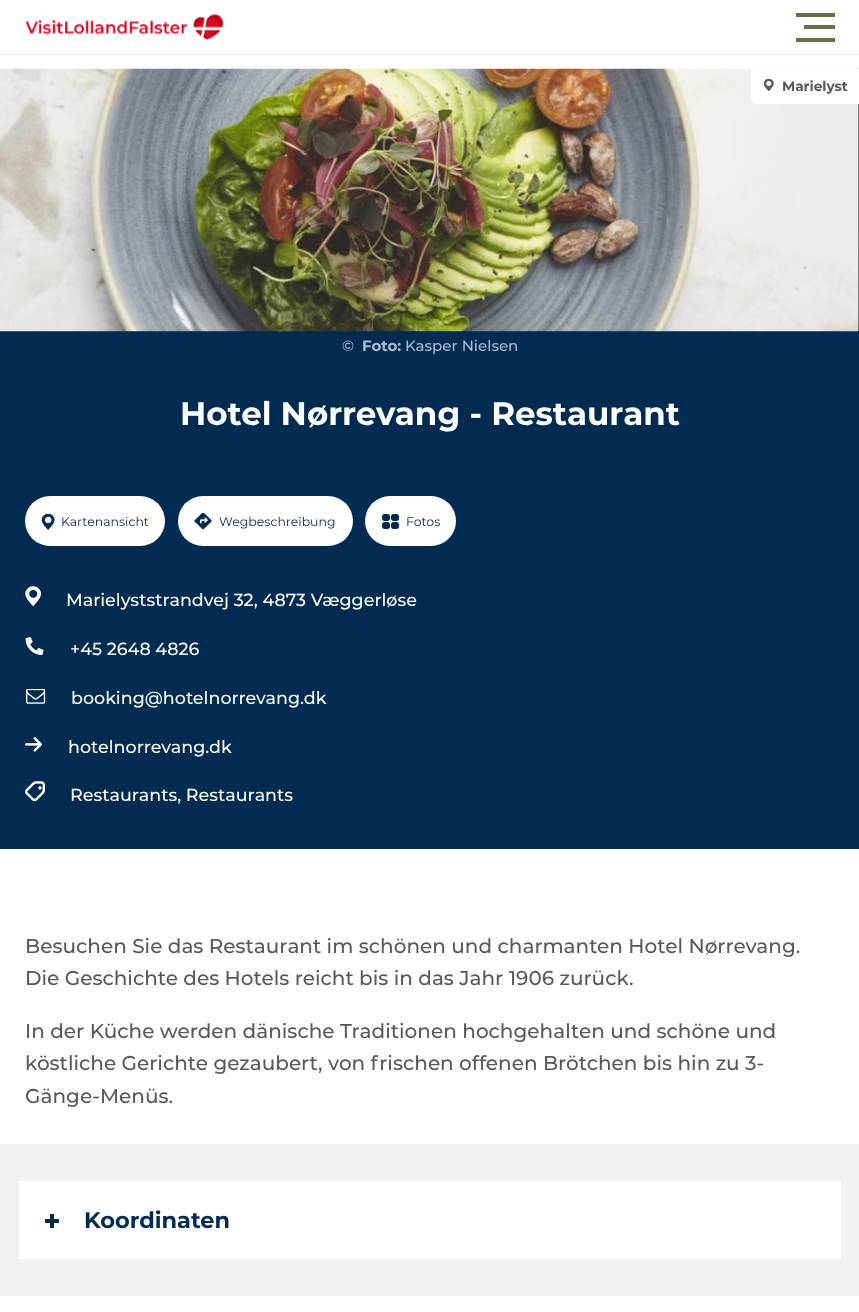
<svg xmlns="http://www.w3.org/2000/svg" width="859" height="1312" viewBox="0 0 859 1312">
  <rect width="100%" height="100%" fill="#fff"/>
  <path d="M0 54h859v1H0z" fill="#f0f1f3"/>
  <image x="25" y="14" width="199" height="27" href="img/1.png"/>
  <path d="M796 13h39v4H796z" fill="#686e48"/>
  <path d="M804 25h31v4H804z" fill="#686e48"/>
  <path d="M796 38h39v4H796z" fill="#686e48"/>
  <path d="M0 331h859v518H0z" fill="#022b52"/>
  <image x="0" y="68" width="859" height="264" href="img/2.png"/>
  <path d="M751 69H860V104H757C753.5 104 751 101.5 751 98Z" fill="#fff"/>
  <image x="764" y="79" width="10" height="12" href="img/3.png"/>
  <rect x="25" y="496" width="140" height="50" rx="25" fill="#fff"/>
  <image x="41" y="514" width="14" height="16" href="img/4.png"/>
  <rect x="178" y="496" width="175" height="50" rx="25" fill="#fff"/>
  <image x="194" y="513" width="18" height="17" href="img/5.png"/>
  <rect x="365" y="496" width="91" height="50" rx="25" fill="#fff"/>
  <image x="382" y="514" width="17" height="15" href="img/6.png"/>
  <image x="25" y="586" width="16" height="20" href="img/7.png"/>
  <image x="25" y="637" width="19" height="18" href="img/8.png"/>
  <image x="26" y="689" width="20" height="15" href="img/9.png"/>
  <image x="25" y="737" width="17" height="15" href="img/10.png"/>
  <image x="25" y="781" width="20" height="20" href="img/11.png"/>
  <path d="M0 1144h859v152H0z" fill="#eff1f3"/>
  <path d="M19 1181h822v78H19z" fill="#fff"/>
  <path d="M45 1219h14v4H45z" fill="#022b52"/>
  <path d="M50 1214h4v14H50z" fill="#022b52"/>
  <text x="782" y="91" font-family="Montserrat" font-size="13.75" font-weight="bold" fill="#585858">Marielyst</text>
  <text x="342" y="351" font-family="Montserrat" font-size="15" font-weight="500" fill="#aabccd">©</text>
  <text x="362" y="351" font-family="Montserrat" font-size="15" font-weight="bold" fill="#aabccd">Foto:</text>
  <text x="405" y="351" font-family="Montserrat" font-size="15" font-weight="500" fill="#aabccd">Kasper Nielsen</text>
  <text x="180" y="425" font-family="Montserrat" font-size="32.5" font-weight="bold" fill="#fff">Hotel Nørrevang - Restaurant</text>
  <g font-family="Montserrat" font-size="12.5" fill="#022b52">
    <text x="61" y="526">Kartenansicht</text>
    <text x="219" y="526">Wegbeschreibung</text>
    <text x="406" y="526">Fotos</text>
  </g>
  <g font-family="Montserrat" font-size="17.5" font-weight="500" fill="#fff">
    <text x="66" y="606">Marielyststrandvej 32, 4873 Væggerløse</text>
    <text x="70" y="655">+45 2648 4826</text>
    <text x="71" y="704">booking@hotelnorrevang.dk</text>
    <text x="68" y="753">hotelnorrevang.dk</text>
    <text x="70" y="801">Restaurants, Restaurants</text>
  </g>
  <g font-family="Montserrat" font-size="20" font-weight="500" fill="#585858">
    <text x="25" y="953">Besuchen Sie das Restaurant im schönen und charmanten Hotel Nørrevang.</text>
    <text x="25" y="985">Die Geschichte des Hotels reicht bis in das Jahr 1906 zurück.</text>
    <text x="25" y="1038">In der Küche werden dänische Traditionen hochgehalten und schöne und</text>
    <text x="25" y="1070">köstliche Gerichte gezaubert, von frischen offenen Brötchen bis hin zu 3-</text>
    <text x="25" y="1103">Gänge-Menüs.</text>
  </g>
  <text x="84" y="1228" font-family="Montserrat" font-size="22.5" font-weight="bold" fill="#022b52">Koordinaten</text>
</svg>
